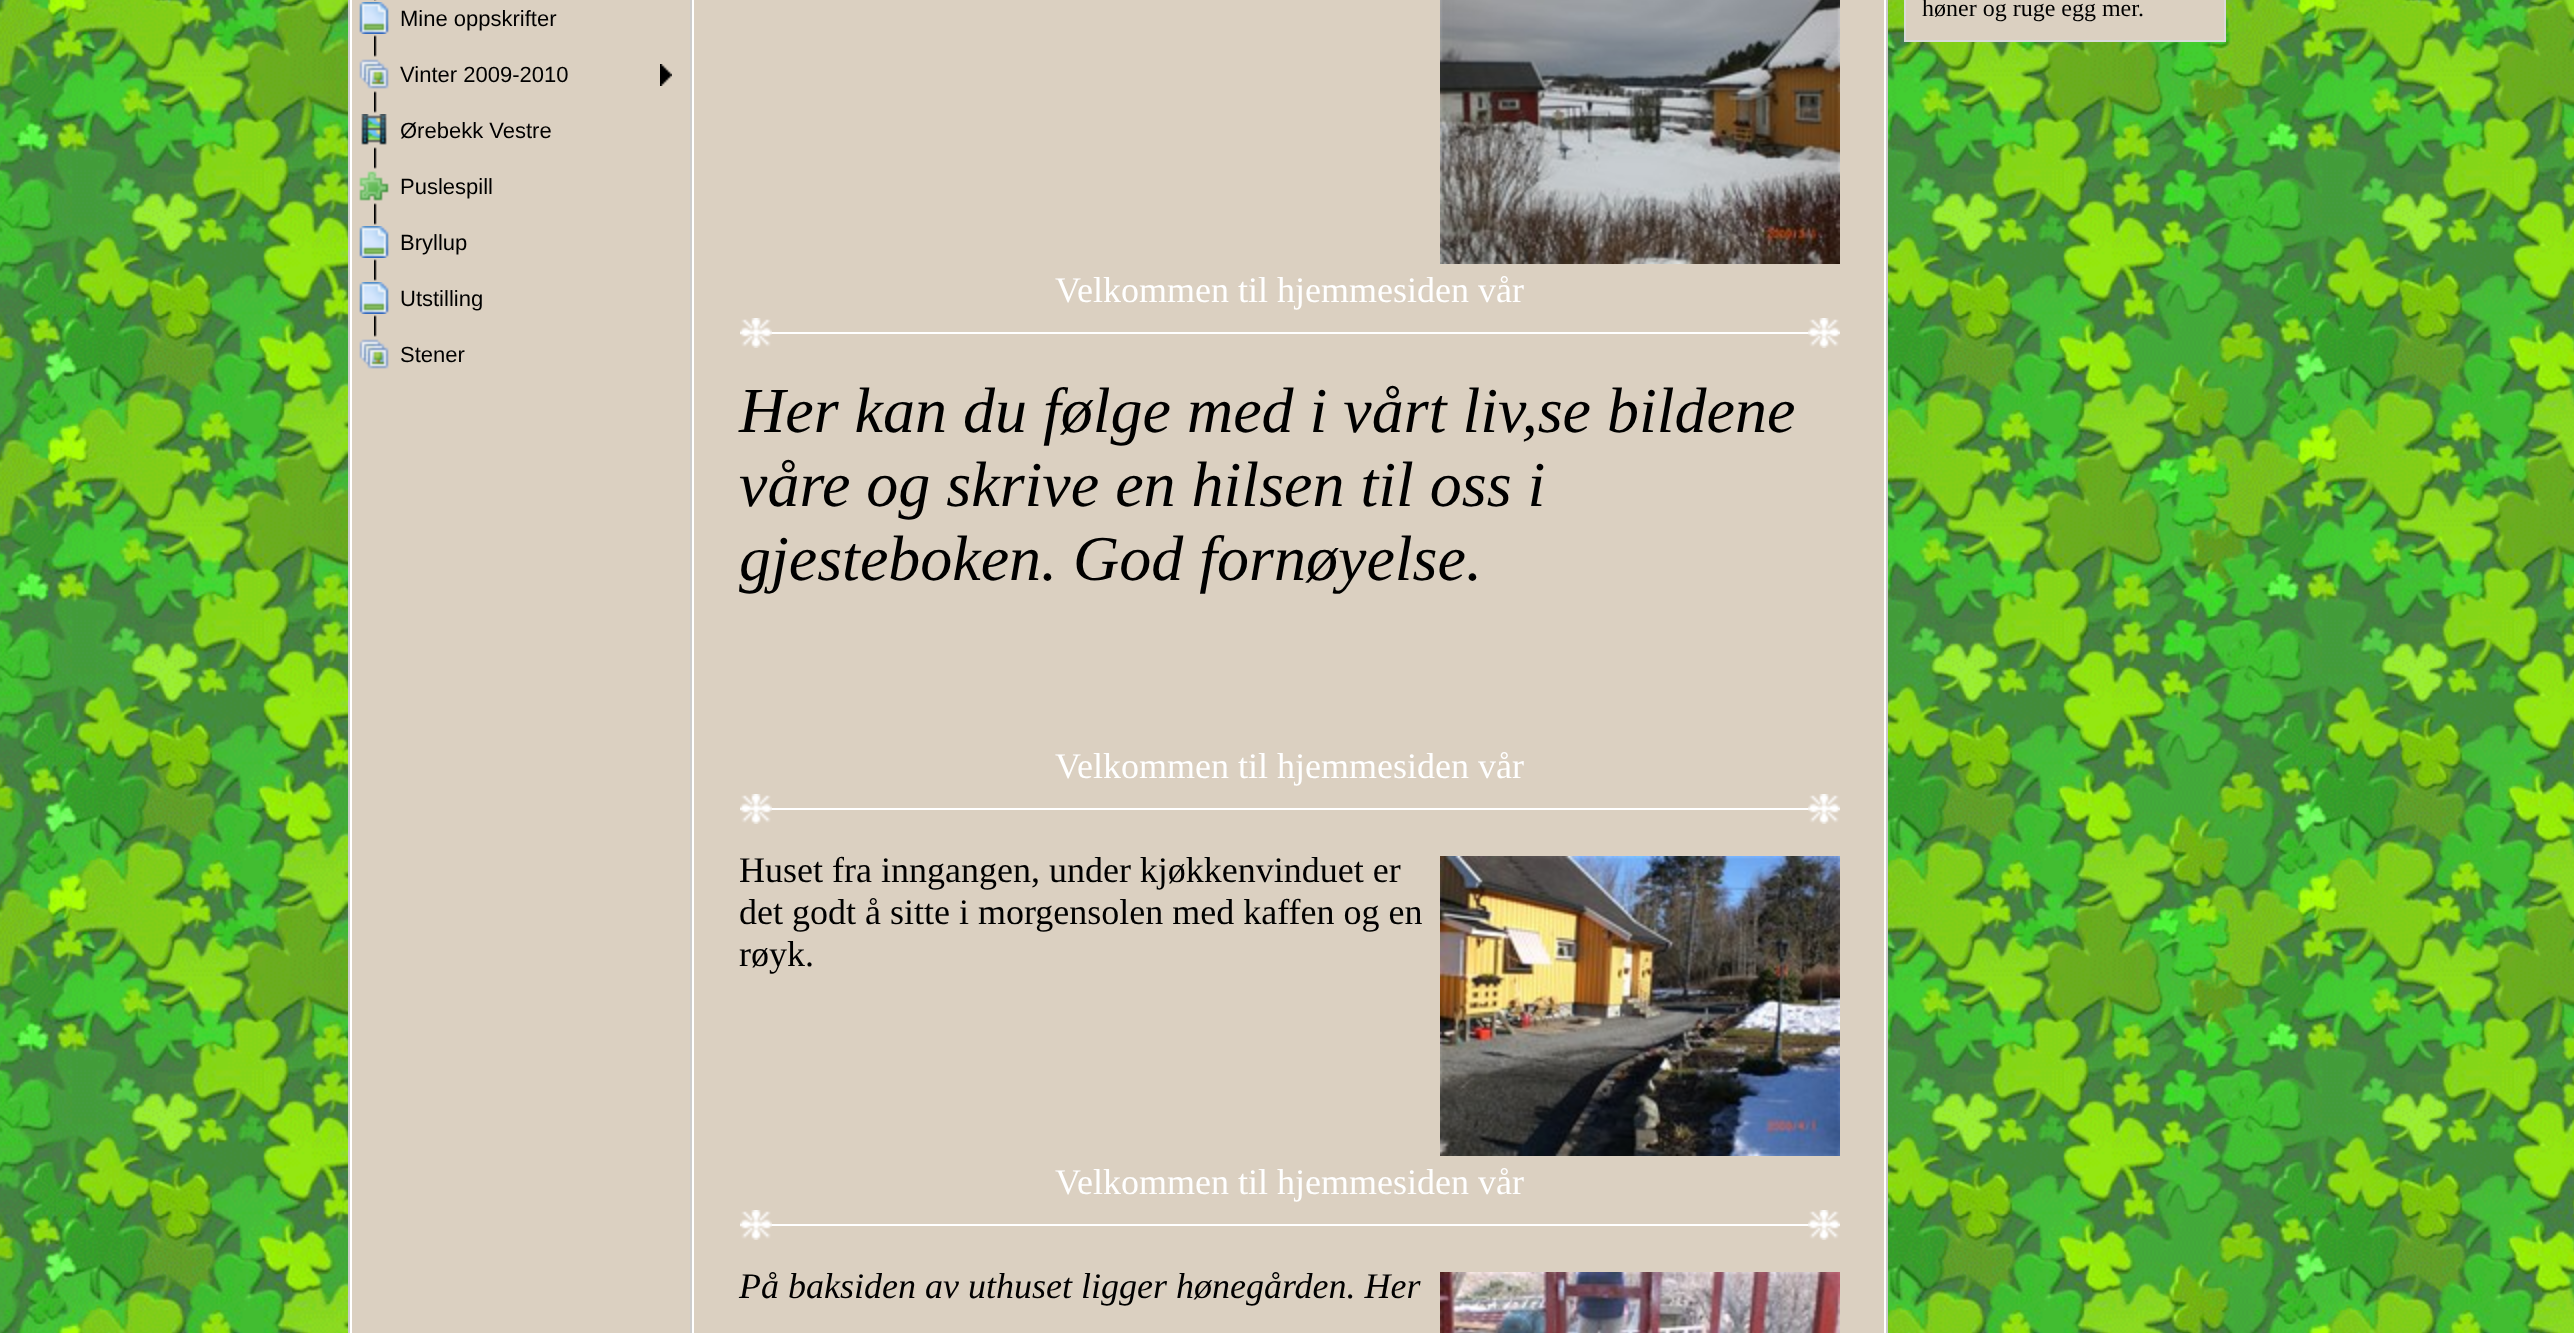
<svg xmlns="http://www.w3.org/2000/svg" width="2574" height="1333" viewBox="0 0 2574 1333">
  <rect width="100%" height="100%" fill="#fff"/>
  <image x="0" y="0" width="2574" height="1333" href="img/1.png"/>
  <path d="M350 0h1536v1333H350z" fill="#fff"/>
  <path d="M348 0h2v1333H348z" fill="#ccc"/>
  <path d="M352 0h338v1333H352z" fill="#dbd0c1"/>
  <image x="374" y="0" width="3" height="46" href="img/2.png"/>
  <image x="359" y="2" width="30" height="32" href="img/3.png"/>
  <image x="374" y="46" width="3" height="56" href="img/4.png"/>
  <image x="359" y="59" width="30" height="30" href="img/5.png"/>
  <image x="660" y="64" width="12" height="22" href="img/6.png"/>
  <image x="374" y="102" width="3" height="56" href="img/4.png"/>
  <image x="361" y="114" width="26" height="31" href="img/7.png"/>
  <image x="374" y="158" width="3" height="56" href="img/4.png"/>
  <image x="359" y="171" width="30" height="30" href="img/8.png"/>
  <image x="374" y="214" width="3" height="56" href="img/4.png"/>
  <image x="359" y="226" width="30" height="32" href="img/3.png"/>
  <image x="374" y="270" width="3" height="56" href="img/4.png"/>
  <image x="359" y="282" width="30" height="32" href="img/3.png"/>
  <image x="374" y="326" width="3" height="11" href="img/9.png"/>
  <image x="359" y="339" width="30" height="30" href="img/5.png"/>
  <path d="M690 0h2v1333H690z" fill="#ccc"/>
  <path d="M1886 0h2v1333H1886z" fill="#ccc"/>
  <path d="M694 0h1190v1333H694z" fill="#dbd0c1"/>
  <image x="1440" y="0" width="400" height="264" href="img/10.png"/>
  <image x="740" y="318" width="32" height="30" href="img/11.png"/>
  <image x="1808" y="318" width="32" height="30" href="img/11.png"/>
  <path d="M772 332h1036v2H772z" fill="#fff"/>
  <image x="740" y="794" width="32" height="30" href="img/11.png"/>
  <image x="1808" y="794" width="32" height="30" href="img/11.png"/>
  <path d="M772 808h1036v2H772z" fill="#fff"/>
  <image x="1440" y="856" width="400" height="300" href="img/12.png"/>
  <image x="740" y="1210" width="32" height="30" href="img/11.png"/>
  <image x="1808" y="1210" width="32" height="30" href="img/11.png"/>
  <path d="M772 1224h1036v2H772z" fill="#fff"/>
  <image x="1440" y="1272" width="400" height="61" href="img/13.png"/>
  <path d="M1905 -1h320v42H1905z" fill="#dbd0c1" stroke="#dadada" stroke-width="2"/>
  <g font-family="Liberation Sans" font-size="22" fill="#000">
    <text x="400" y="26">Mine oppskrifter</text>
    <text x="400" y="82">Vinter 2009-2010</text>
    <text x="400" y="138">Ørebekk Vestre</text>
    <text x="400" y="194">Puslespill</text>
    <text x="400" y="250">Bryllup</text>
    <text x="400" y="306">Utstilling</text>
    <text x="400" y="362">Stener</text>
  </g>
  <text x="1055" y="302" font-family="Liberation Serif" font-size="36" fill="#fff">Velkommen til hjemmesiden vår</text>
  <g font-family="Liberation Serif" font-size="64" font-style="italic" fill="#000">
    <text x="739" y="432">Her kan du følge med i vårt liv,se bildene</text>
    <text x="739" y="506">våre og skrive en hilsen til oss i</text>
    <text x="739" y="580">gjesteboken. God fornøyelse.</text>
  </g>
  <text x="1055" y="778" font-family="Liberation Serif" font-size="36" fill="#fff">Velkommen til hjemmesiden vår</text>
  <g font-family="Liberation Serif" font-size="36" fill="#000">
    <text x="739" y="882">Huset fra inngangen, under kjøkkenvinduet er</text>
    <text x="739" y="924">det godt å sitte i morgensolen med kaffen og en</text>
    <text x="739" y="966">røyk.</text>
  </g>
  <text x="1055" y="1194" font-family="Liberation Serif" font-size="36" fill="#fff">Velkommen til hjemmesiden vår</text>
  <text x="739" y="1298" font-family="Liberation Serif" font-size="36" font-style="italic" fill="#000">På baksiden av uthuset ligger hønegården. Her</text>
  <text x="1922" y="16" font-family="Liberation Serif" font-size="24" fill="#000">høner og ruge egg mer.</text>
</svg>
